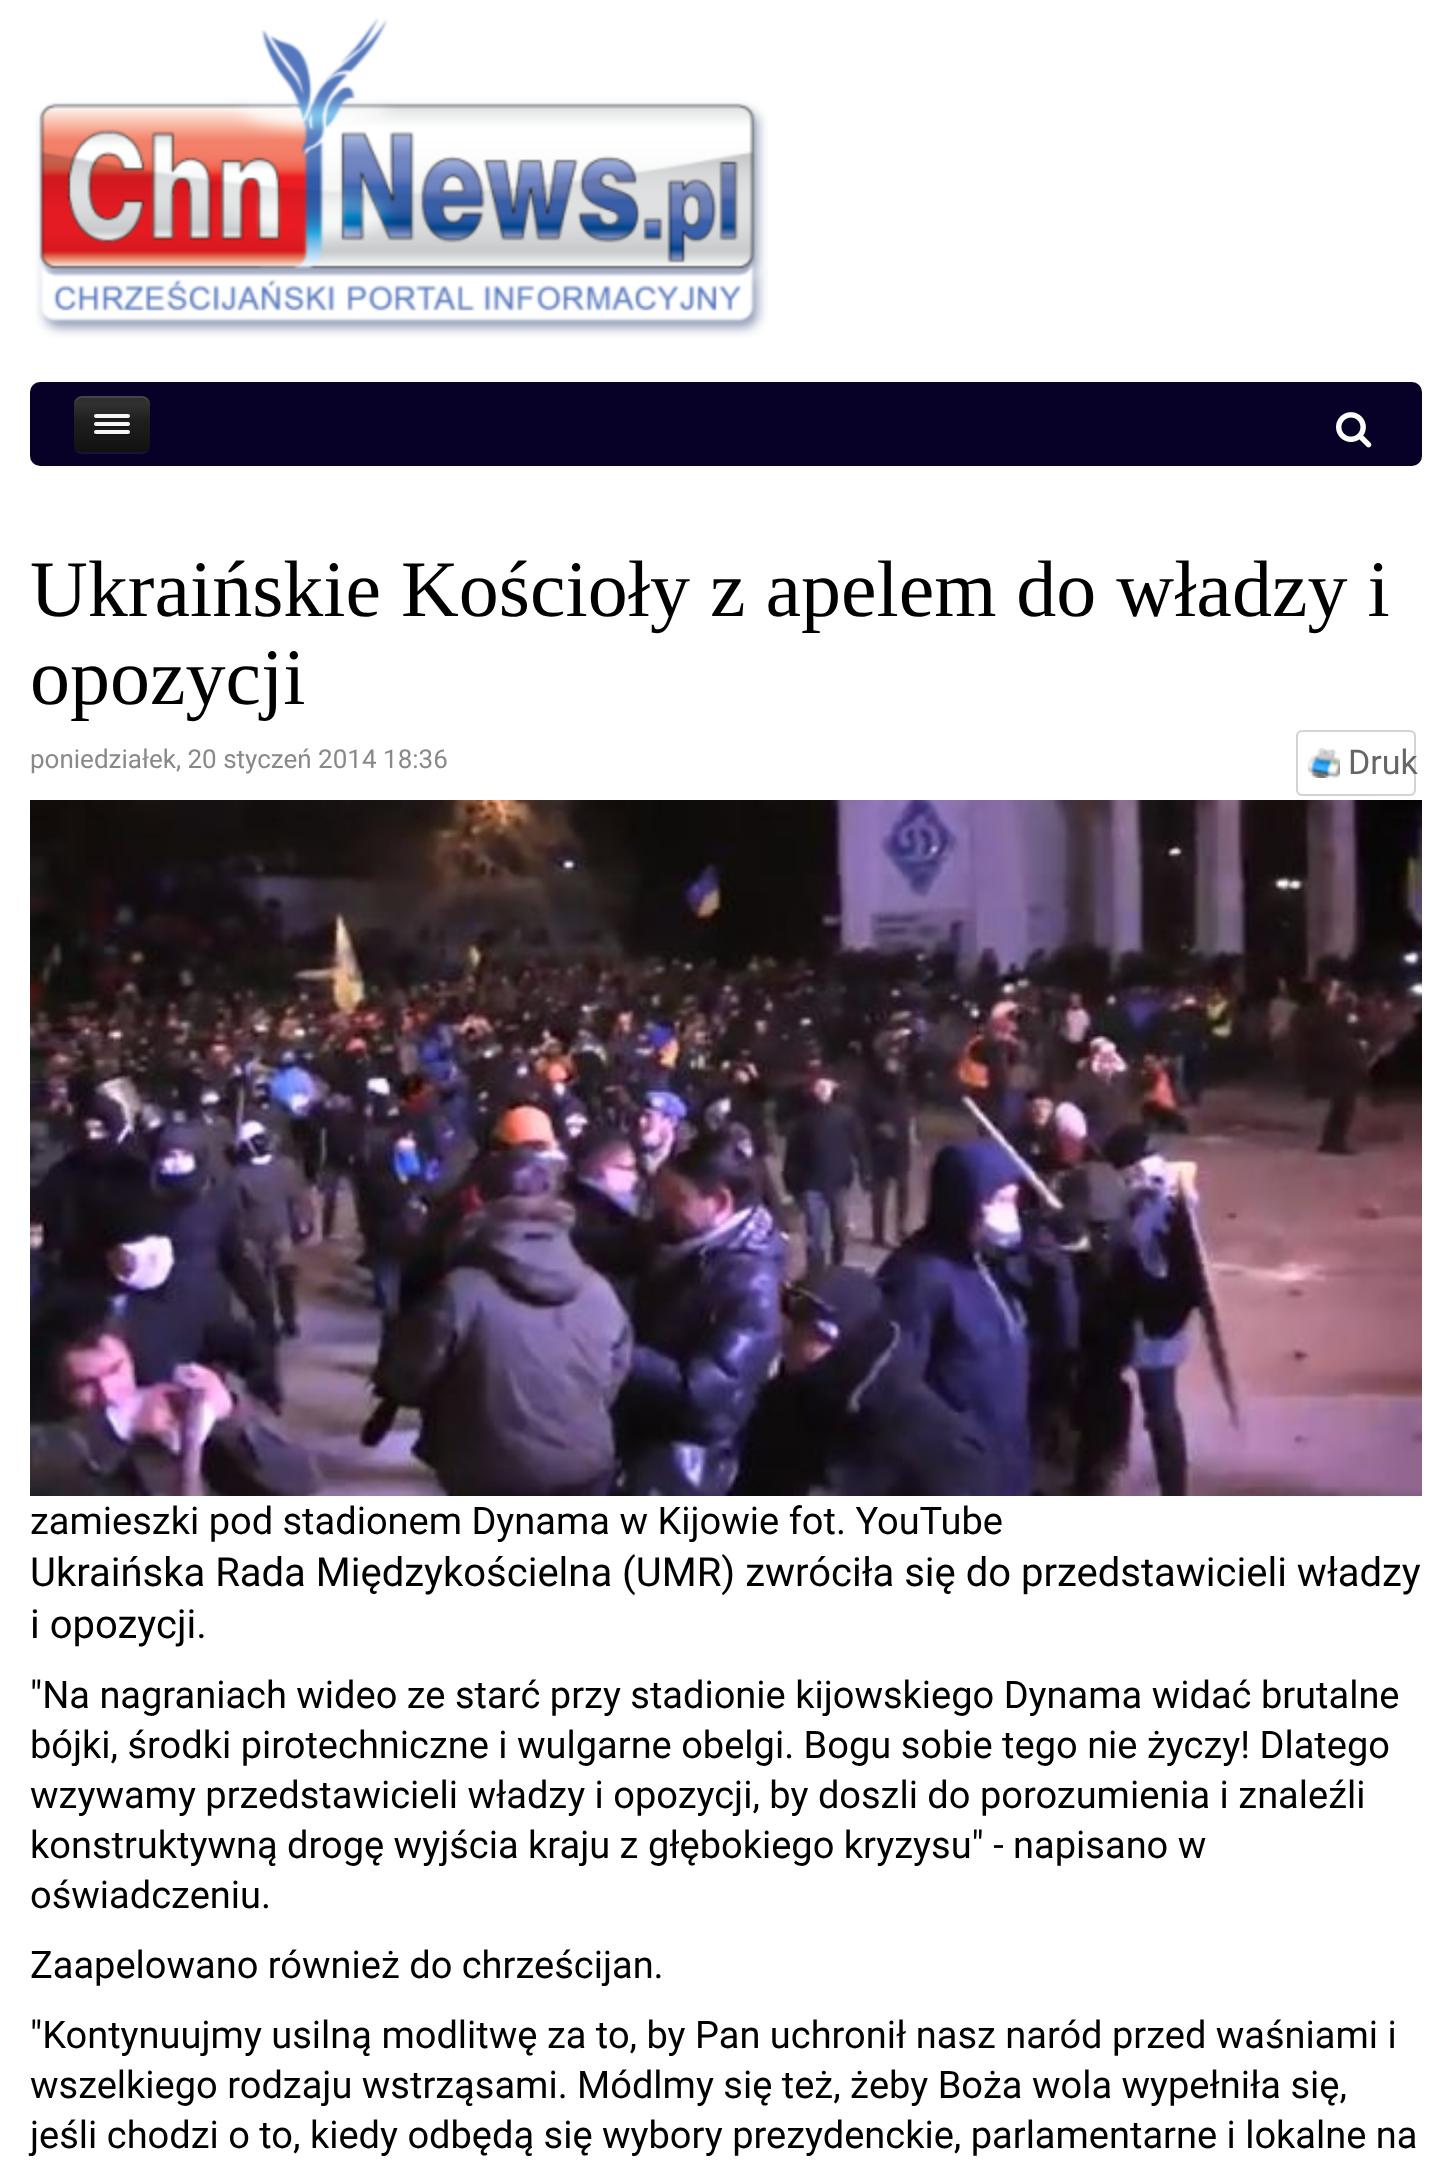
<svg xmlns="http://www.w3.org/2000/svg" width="1452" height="2177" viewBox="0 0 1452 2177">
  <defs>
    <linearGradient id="g1" gradientUnits="userSpaceOnUse" x1="112" y1="452" x2="112" y2="396"><stop offset="0.01" stop-color="#111"/><stop offset="0.57" stop-color="#1f1f1f"/><stop offset="0.85" stop-color="#303030"/></linearGradient>
  </defs>
  <rect width="100%" height="100%" fill="#fff"/>
  <image x="35" y="18" width="733" height="320" href="img/1.png"/>
  <rect x="30" y="382" width="1392" height="84" rx="10" fill="#070027"/>
  <path d="M74 444C74 456 83 454 92 454H132C141 454 150 456 150 444C150 448 146 452 142 452H82C78 452 74 448 74 444Z" fill="#1a1337"/>
  <rect x="74" y="396" width="76" height="56" rx="8" fill="url(#g1)"/>
  <path d="M82 398H142C146 398 150 402 150 406C150 394 141 396 132 396H92C83 396 74 394 74 406C74 402 78 398 82 398Z" fill="#ffffff1a"/>
  <path d="M94.5 417C92 421 101 420 101.5 420H122.5C123 420 132 421 129.5 417C129.5 417.5 128.5 418 128 418H96C95.5 418 94.5 417.5 94.5 417Z" fill="#181818"/>
  <rect x="94" y="414" width="36" height="4" rx="2" fill="#f5f5f5"/>
  <path d="M94.5 425C92 429 101 428 101.5 428H122.5C123 428 132 429 129.5 425C129.5 425.5 128.5 426 128 426H96C95.5 426 94.5 425.5 94.5 425Z" fill="#151515"/>
  <rect x="94" y="422" width="36" height="4" rx="2" fill="#f5f5f5"/>
  <path d="M94.5 433C92 437 101 436 101.5 436H122.5C123 436 132 437 129.5 433C129.5 433.5 128.5 434 128 434H96C95.5 434 94.5 433.5 94.5 433Z" fill="#121212"/>
  <rect x="94" y="430" width="36" height="4" rx="2" fill="#f5f5f5"/>
  <image x="1336" y="412" width="36" height="36" href="img/2.png"/>
  <image x="1308" y="748" width="32" height="30" href="img/3.png"/>
  <rect x="1297" y="731" width="118" height="64" rx="5" fill="none" stroke="#d3d3d3" stroke-width="2"/>
  <image x="30" y="800" width="1392" height="696" href="img/4.png"/>
  <g font-family="Liberation Serif" font-size="80" fill="#000">
    <text x="30" y="616">Ukraińskie Kościoły z apelem do władzy i</text>
    <text x="30" y="704">opozycji</text>
  </g>
  <text x="30" y="768" font-family="Roboto" font-size="26" fill="#898989">poniedziałek, 20 styczeń 2014 18:36</text>
  <text x="1348" y="774" font-family="Roboto" font-size="34" fill="#666">Druk</text>
  <text x="30" y="1534" font-family="Roboto" font-size="38" fill="#000">zamieszki pod stadionem Dynama w Kijowie fot. YouTube</text>
  <g font-family="Roboto" font-size="40" fill="#000">
    <text x="30" y="1586">Ukraińska Rada Międzykościelna (UMR) zwróciła się do przedstawicieli władzy</text>
    <text x="30" y="1638">i opozycji.</text>
  </g>
  <g font-family="Roboto" font-size="38" fill="#000">
    <text x="30" y="1708">"Na nagraniach wideo ze starć przy stadionie kijowskiego Dynama widać brutalne</text>
    <text x="30" y="1758">bójki, środki pirotechniczne i wulgarne obelgi. Bogu sobie tego nie życzy! Dlatego</text>
    <text x="30" y="1808">wzywamy przedstawicieli władzy i opozycji, by doszli do porozumienia i znaleźli</text>
    <text x="30" y="1858">konstruktywną drogę wyjścia kraju z głębokiego kryzysu" - napisano w</text>
    <text x="30" y="1908">oświadczeniu.</text>
    <text x="30" y="1978">Zaapelowano również do chrześcijan.</text>
    <text x="30" y="2048">"Kontynuujmy usilną modlitwę za to, by Pan uchronił nasz naród przed waśniami i</text>
    <text x="30" y="2098">wszelkiego rodzaju wstrząsami. Módlmy się też, żeby Boża wola wypełniła się,</text>
    <text x="30" y="2148">jeśli chodzi o to, kiedy odbędą się wybory prezydenckie, parlamentarne i lokalne na</text>
  </g>
</svg>
